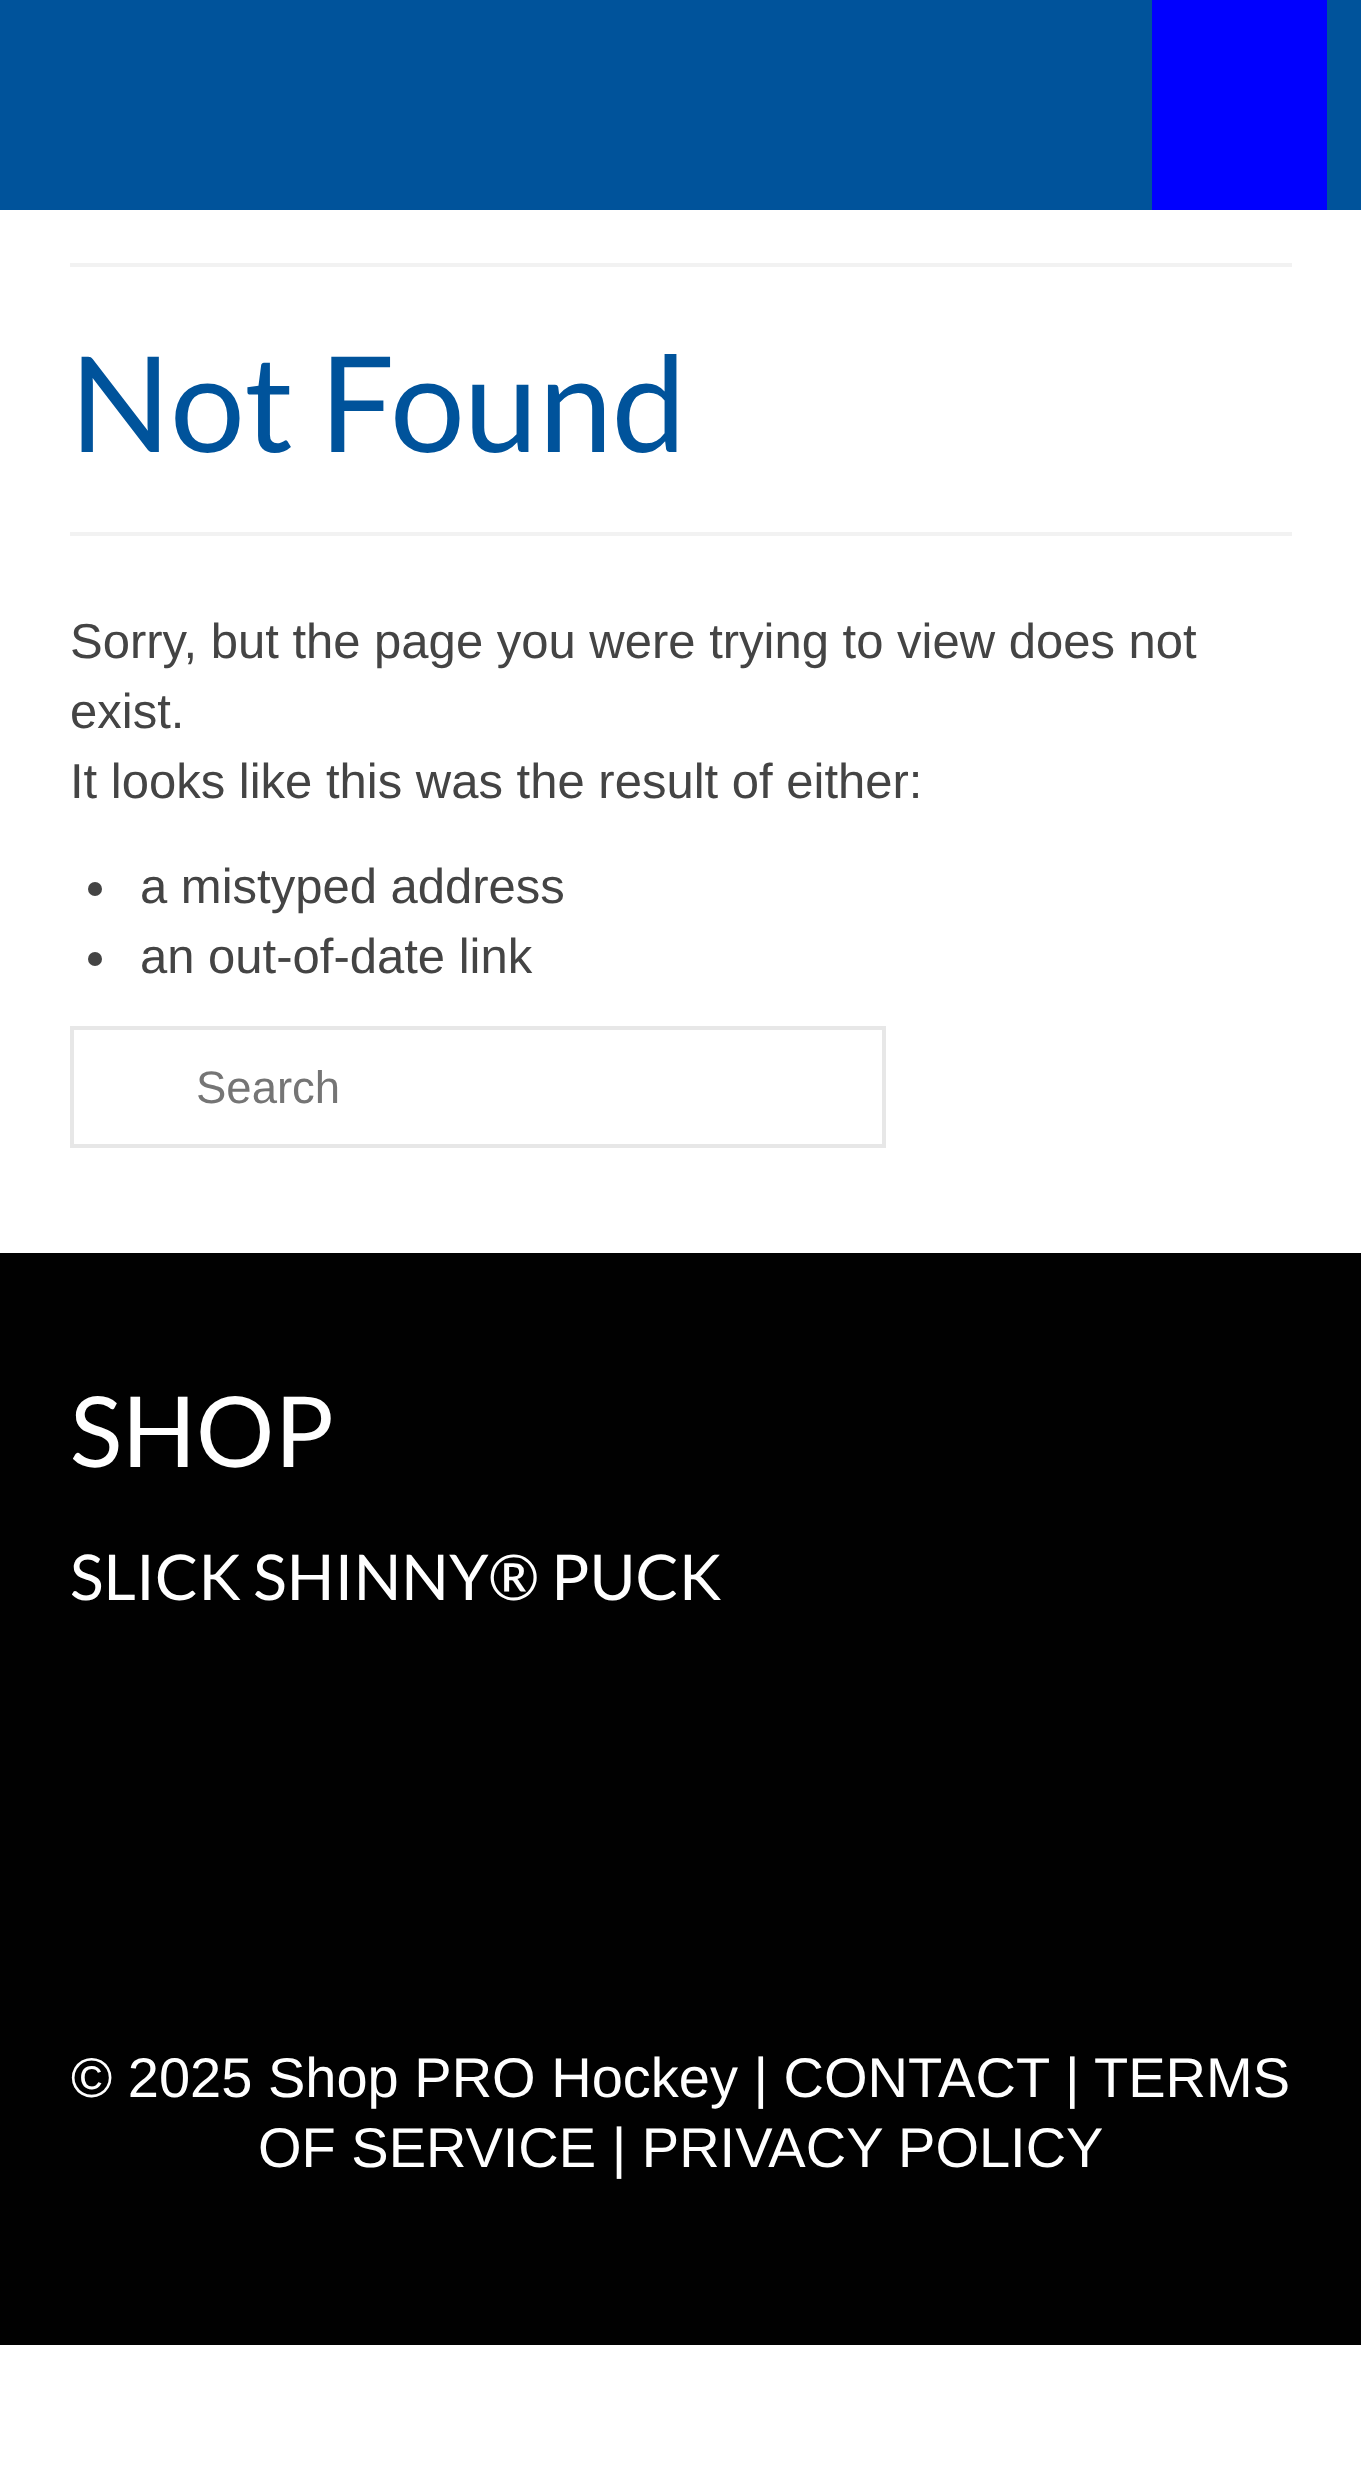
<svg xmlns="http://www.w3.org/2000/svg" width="1361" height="2489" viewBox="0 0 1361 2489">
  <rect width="100%" height="100%" fill="#fff"/>
  <path d="M0 0h1361v210H0z" fill="#00539b"/>
  <path d="M1152 0h175v210H1152z" fill="#00f"/>
  <path d="M70 263h1222v4H70z" fill="#f2f2f2"/>
  <path d="M70 532h1222v4H70z" fill="#f2f2f2"/>
  <circle cx="95" cy="889" r="7" fill="#444"/>
  <circle cx="95" cy="959" r="7" fill="#444"/>
  <path d="M72 1028h812v118H72z" fill="none" stroke="#e7e7e7" stroke-width="4"/>
  <path d="M0 1253h1361v1092H0z" fill="#010101"/>
  <text x="70" y="452" font-family="Lato" font-size="133" fill="#00539b">Not Found</text>
  <g font-family="Liberation Sans" font-size="49" fill="#444">
    <text x="70" y="658">Sorry, but the page you were trying to view does not</text>
    <text x="70" y="728">exist.</text>
    <text x="70" y="798">It looks like this was the result of either:</text>
    <text x="140" y="903">a mistyped address</text>
    <text x="140" y="973">an out-of-date link</text>
  </g>
  <text x="196" y="1103" font-family="Liberation Sans" font-size="45.5" fill="#757575">Search</text>
  <text x="70" y="1467" font-family="Lato" font-size="98" fill="#fff">SHOP</text>
  <text x="70" y="1600" font-family="Lato" font-size="63" fill="#fff">SLICK SHINNY® PUCK</text>
  <g font-family="Liberation Sans" font-size="56" fill="#fff">
    <text x="71" y="2097">© 2025 Shop PRO Hockey | CONTACT</text>
    <text x="1065" y="2097">|</text>
    <text x="1094" y="2097">TERMS</text>
    <text x="258" y="2167">OF SERVICE | PRIVACY POLICY</text>
  </g>
</svg>
